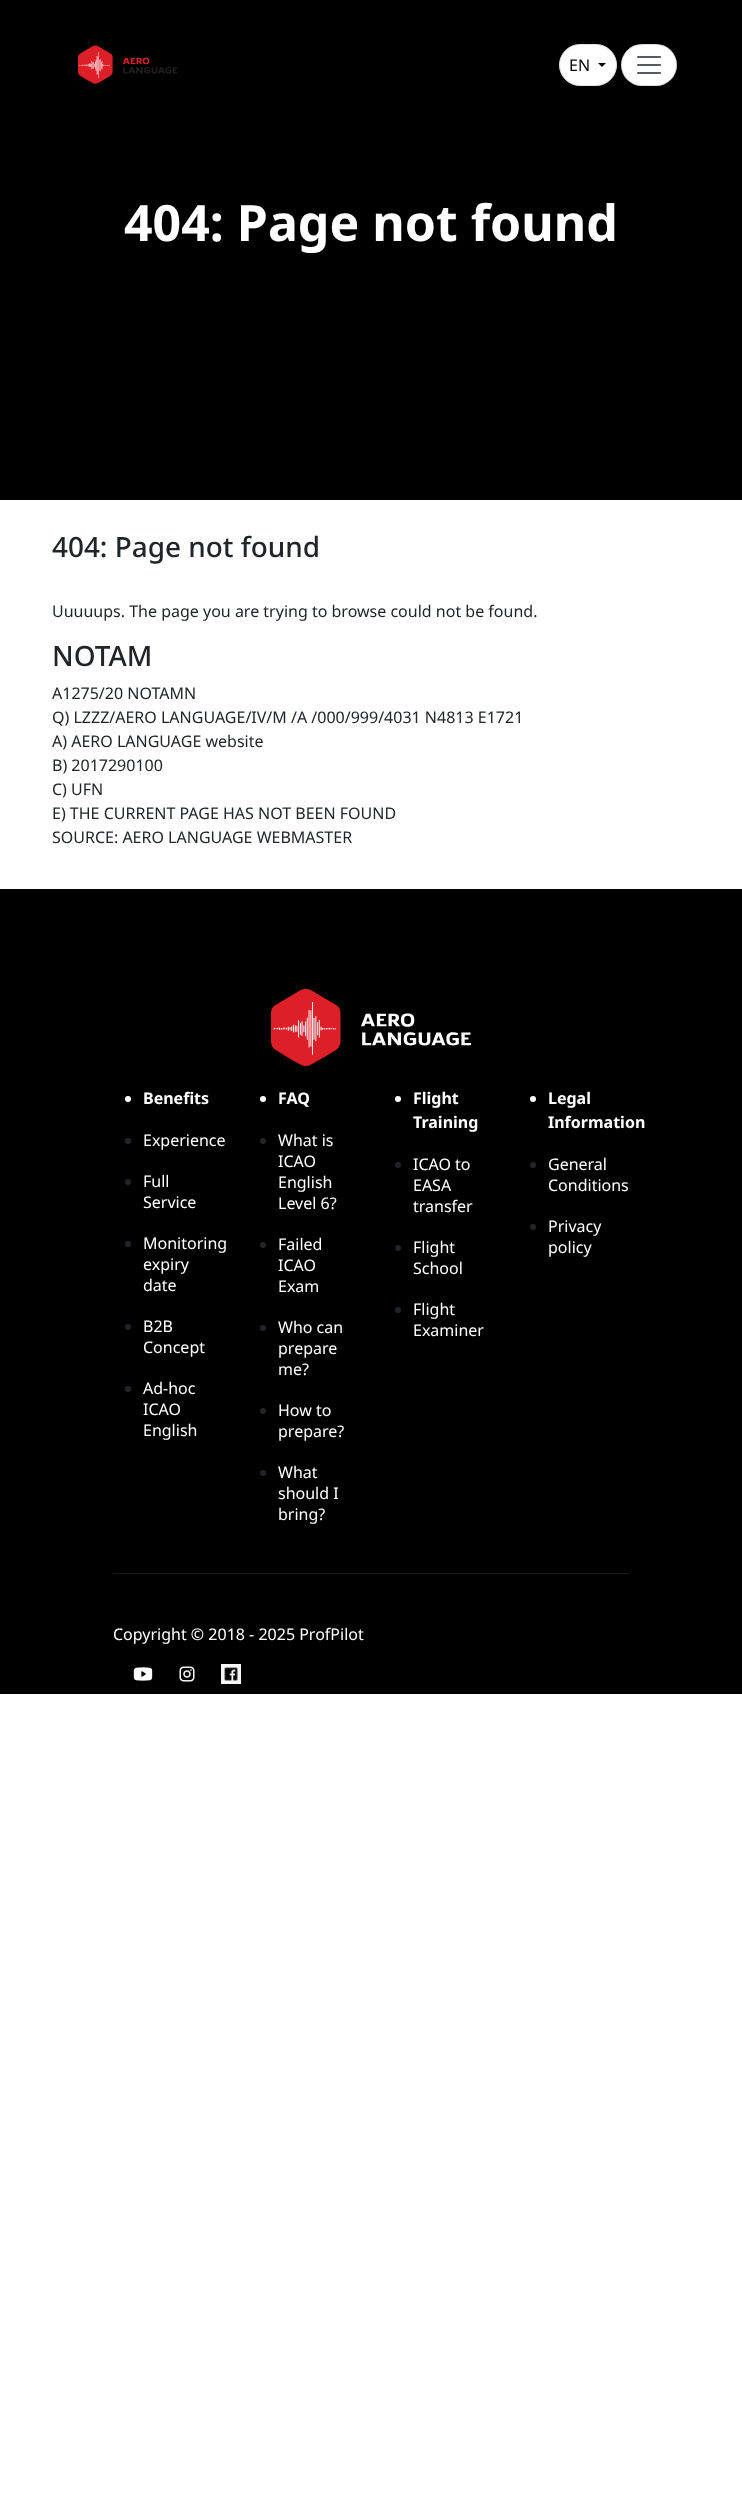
<svg xmlns="http://www.w3.org/2000/svg" width="742" height="2507" viewBox="0 0 742 2507">
  <rect width="100%" height="100%" fill="#fff"/>
  <path d="M0 0h742v500H0z" fill="#000"/>
  <image x="78" y="45" width="100" height="39" href="img/1.png"/>
  <rect x="559.5" y="44.5" width="57" height="41" rx="20.5" fill="#fff" stroke="#dee2e6"/>
  <path d="M598 63H606L602 67Z" fill="#000"/>
  <rect x="621" y="44" width="56" height="42" rx="21" fill="#fff"/>
  <rect x="621.5" y="44.5" width="55" height="41" rx="20.5" fill="none" stroke="#00000026"/>
  <image x="637" y="56" width="24" height="18" href="img/2.png"/>
  <path d="M0 889h742v805H0z" fill="#000"/>
  <image x="271" y="989" width="200" height="77" href="img/3.png"/>
  <circle cx="128" cy="1099" r="3" fill="#fff"/>
  <circle cx="128" cy="1141" r="3" fill="#212529"/>
  <circle cx="128" cy="1182" r="3" fill="#212529"/>
  <circle cx="128" cy="1244" r="3" fill="#212529"/>
  <circle cx="128" cy="1327" r="3" fill="#212529"/>
  <circle cx="128" cy="1389" r="3" fill="#212529"/>
  <circle cx="263" cy="1099" r="3" fill="#fff"/>
  <circle cx="263" cy="1141" r="3" fill="#212529"/>
  <circle cx="263" cy="1245" r="3" fill="#212529"/>
  <circle cx="263" cy="1328" r="3" fill="#212529"/>
  <circle cx="263" cy="1411" r="3" fill="#212529"/>
  <circle cx="263" cy="1473" r="3" fill="#212529"/>
  <circle cx="398" cy="1099" r="3" fill="#fff"/>
  <circle cx="398" cy="1165" r="3" fill="#212529"/>
  <circle cx="398" cy="1248" r="3" fill="#212529"/>
  <circle cx="398" cy="1310" r="3" fill="#212529"/>
  <circle cx="533" cy="1099" r="3" fill="#fff"/>
  <circle cx="533" cy="1165" r="3" fill="#212529"/>
  <circle cx="533" cy="1227" r="3" fill="#212529"/>
  <path d="M113 1573h516v1H113z" fill="#1a1a1a"/>
  <image x="133" y="1667" width="20" height="14" href="img/4.png"/>
  <image x="179" y="1666" width="16" height="16" href="img/5.png"/>
  <image x="221" y="1664" width="20" height="20" href="img/6.png"/>
  <text x="569" y="71" font-family="Noto Sans" font-size="16" fill="#000">EN</text>
  <text x="124" y="241" font-family="Noto Sans" font-size="50" font-weight="bold" fill="#fff">404: Page not found</text>
  <text x="52" y="557" font-family="Noto Sans" font-size="27.9" font-weight="500" fill="#212529">404: Page not found</text>
  <text x="52" y="617" font-family="Noto Sans" font-size="16" fill="#212529">Uuuuups. The page you are trying to browse could not be found.</text>
  <text x="52" y="666" font-family="Noto Sans" font-size="27.9" font-weight="500" fill="#212529">NOTAM</text>
  <g font-family="Noto Sans" font-size="16" fill="#212529">
    <text x="52" y="699">A1275/20 NOTAMN</text>
    <text x="52" y="723">Q) LZZZ/AERO LANGUAGE/IV/M /A /000/999/4031 N4813 E1721</text>
    <text x="52" y="747">A) AERO LANGUAGE website</text>
    <text x="52" y="771">B) 2017290100</text>
    <text x="52" y="795">C) UFN</text>
    <text x="52" y="819">E) THE CURRENT PAGE HAS NOT BEEN FOUND</text>
    <text x="52" y="843">SOURCE: AERO LANGUAGE WEBMASTER</text>
  </g>
  <text x="143" y="1104" font-family="Noto Sans" font-size="16" font-weight="bold" fill="#fff">Benefits</text>
  <g font-family="Noto Sans" font-size="16" fill="#fff">
    <text x="143" y="1146">Experience</text>
    <text x="143" y="1187">Full</text>
    <text x="143" y="1208">Service</text>
    <text x="143" y="1249">Monitoring</text>
    <text x="143" y="1270">expiry</text>
    <text x="143" y="1291">date</text>
    <text x="143" y="1332">B2B</text>
    <text x="143" y="1353">Concept</text>
    <text x="143" y="1394">Ad-hoc</text>
    <text x="143" y="1415">ICAO</text>
    <text x="143" y="1436">English</text>
  </g>
  <text x="278" y="1104" font-family="Noto Sans" font-size="16" font-weight="bold" fill="#fff">FAQ</text>
  <g font-family="Noto Sans" font-size="16" fill="#fff">
    <text x="278" y="1146">What is</text>
    <text x="278" y="1167">ICAO</text>
    <text x="278" y="1188">English</text>
    <text x="278" y="1209">Level 6?</text>
    <text x="278" y="1250">Failed</text>
    <text x="278" y="1271">ICAO</text>
    <text x="278" y="1292">Exam</text>
    <text x="278" y="1333">Who can</text>
    <text x="278" y="1354">prepare</text>
    <text x="278" y="1375">me?</text>
    <text x="278" y="1416">How to</text>
    <text x="278" y="1437">prepare?</text>
    <text x="278" y="1478">What</text>
    <text x="278" y="1499">should I</text>
    <text x="278" y="1520">bring?</text>
  </g>
  <g font-family="Noto Sans" font-size="16" font-weight="bold" fill="#fff">
    <text x="413" y="1104">Flight</text>
    <text x="413" y="1128">Training</text>
  </g>
  <g font-family="Noto Sans" font-size="16" fill="#fff">
    <text x="413" y="1170">ICAO to</text>
    <text x="413" y="1191">EASA</text>
    <text x="413" y="1212">transfer</text>
    <text x="413" y="1253">Flight</text>
    <text x="413" y="1274">School</text>
    <text x="413" y="1315">Flight</text>
    <text x="413" y="1336">Examiner</text>
  </g>
  <g font-family="Noto Sans" font-size="16" font-weight="bold" fill="#fff">
    <text x="548" y="1104">Legal</text>
    <text x="548" y="1128">Information</text>
  </g>
  <path d="M547.5 1085.5h82v49H547.5z" fill="none" stroke="#00000033"/>
  <g font-family="Noto Sans" font-size="16" fill="#fff">
    <text x="548" y="1170">General</text>
    <text x="548" y="1191">Conditions</text>
    <text x="548" y="1232">Privacy</text>
  </g>
  <path d="M547.5 1214.5h54v44H547.5z" fill="none" stroke="#00000033"/>
  <g font-family="Noto Sans" font-size="16" fill="#fff">
    <text x="548" y="1253">policy</text>
    <text x="113" y="1640">Copyright © 2018 - 2025 ProfPilot</text>
  </g>
</svg>
